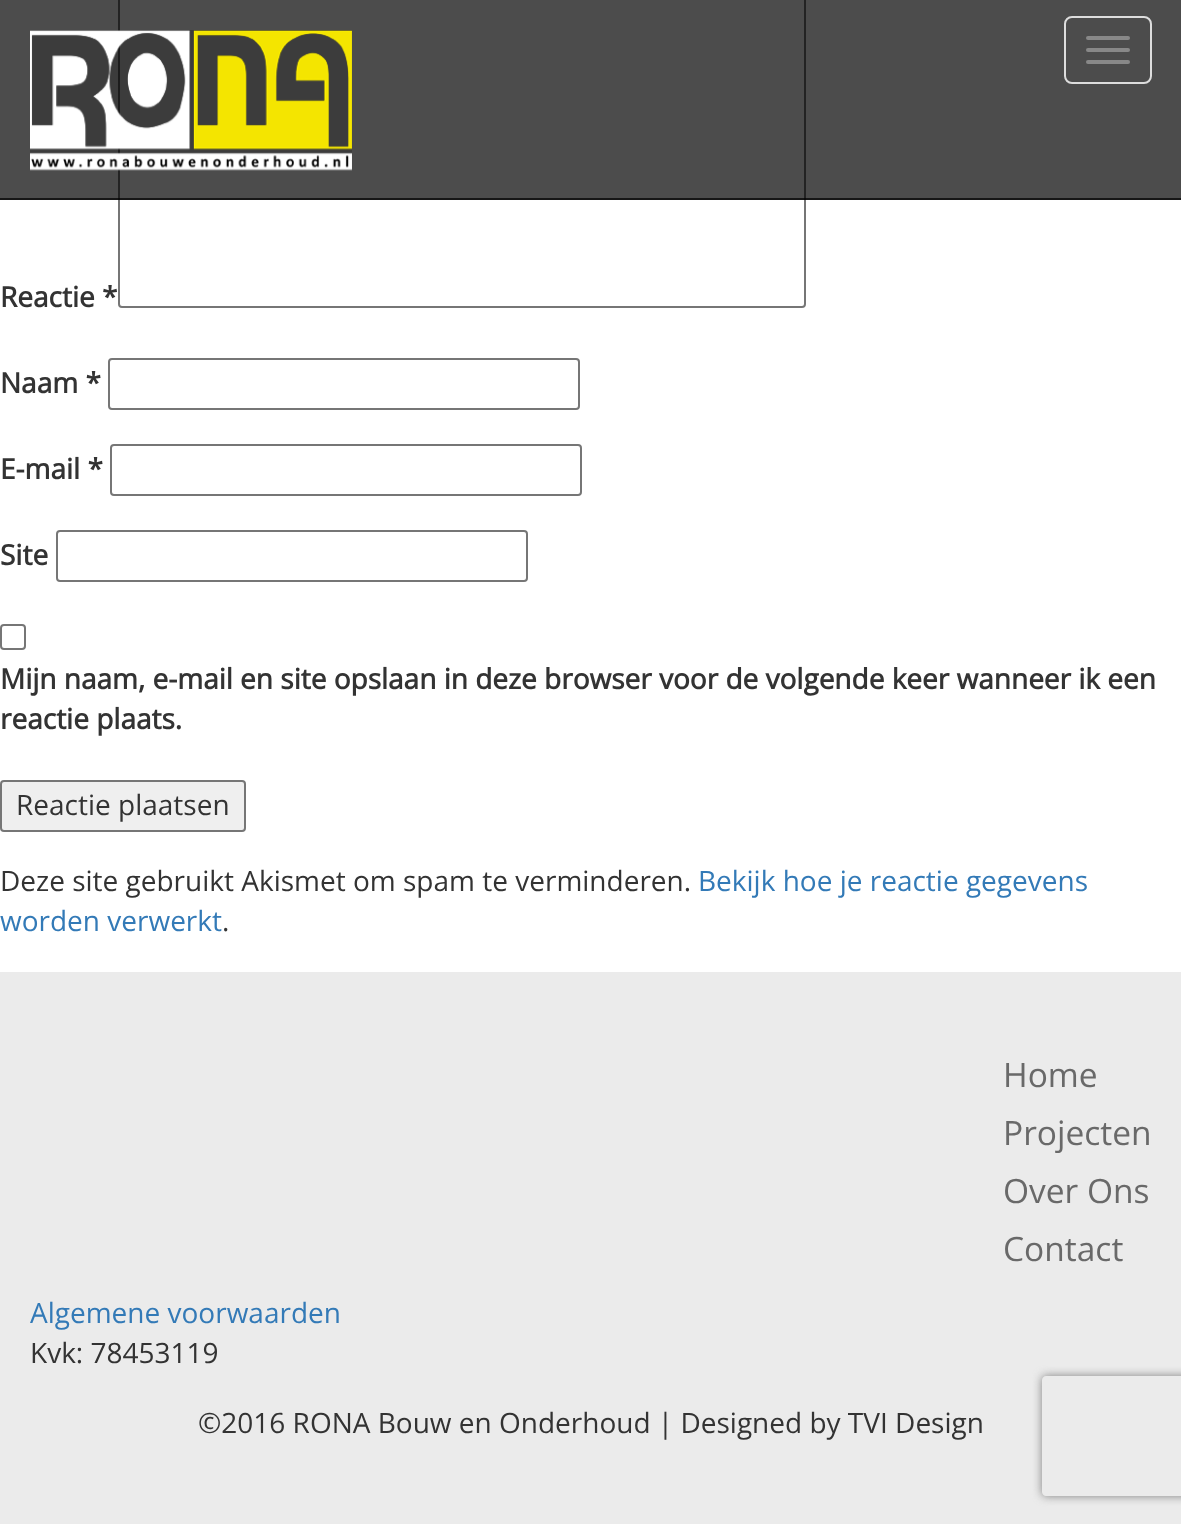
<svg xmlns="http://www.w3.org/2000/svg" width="1181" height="1524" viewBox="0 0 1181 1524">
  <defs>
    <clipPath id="clip1"><path d="M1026 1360H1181V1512H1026ZM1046 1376H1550C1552 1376 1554 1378 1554 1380V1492C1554 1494 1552 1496 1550 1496H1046C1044 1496 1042 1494 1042 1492V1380C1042 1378 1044 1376 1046 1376Z" clip-rule="evenodd"/></clipPath>
  </defs>
  <rect width="100%" height="100%" fill="#fff"/>
  <rect x="119" y="-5" width="686" height="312" rx="3" fill="none" stroke="#767676" stroke-width="2"/>
  <path d="M0 0h1181v200H0z" fill="#000000b3"/>
  <path d="M0 198h1181v2H0z" fill="#000000b3"/>
  <image x="30" y="30" width="322" height="141" href="img/1.png"/>
  <rect x="1065" y="17" width="86" height="66" rx="7" fill="none" stroke="#ddd" stroke-width="2"/>
  <rect x="1086" y="36" width="44" height="4" rx="2" fill="#888"/>
  <rect x="1086" y="48" width="44" height="4" rx="2" fill="#888"/>
  <rect x="1086" y="60" width="44" height="4" rx="2" fill="#888"/>
  <rect x="109" y="359" width="470" height="50" rx="3" fill="none" stroke="#767676" stroke-width="2"/>
  <rect x="111" y="445" width="470" height="50" rx="3" fill="none" stroke="#767676" stroke-width="2"/>
  <rect x="57" y="531" width="470" height="50" rx="3" fill="none" stroke="#767676" stroke-width="2"/>
  <rect x="1" y="625" width="24" height="24" rx="3" fill="none" stroke="#767676" stroke-width="2"/>
  <rect x="1" y="781" width="244" height="50" rx="3" fill="#efefef" stroke="#767676" stroke-width="2"/>
  <path d="M0 972h1181v552H0z" fill="#ebebeb"/>
  <g clip-path="url(#clip1)">
    <rect x="1042" y="1376" width="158" height="120" rx="4" fill="#808080" filter="blur(5px)"/>
  </g>
  <g font-family="Open Sans" font-size="28" font-weight="bold" fill="#333">
    <text x="0" y="307">Reactie *</text>
    <text x="0" y="393">Naam *</text>
    <text x="0" y="479">E-mail *</text>
    <text x="0" y="565">Site</text>
    <text x="0" y="689">Mijn naam, e-mail en site opslaan in deze browser voor de volgende keer wanneer ik een</text>
    <text x="0" y="729">reactie plaats.</text>
  </g>
  <g font-family="Open Sans" font-size="28" fill="#333">
    <text x="16" y="815">Reactie plaatsen</text>
    <text x="0" y="891">Deze site gebruikt Akismet om spam te verminderen.</text>
  </g>
  <g font-family="Open Sans" font-size="28" fill="#337ab7">
    <text x="698" y="891">Bekijk hoe je reactie gegevens</text>
    <text x="0" y="931">worden verwerkt</text>
  </g>
  <text x="222" y="931" font-family="Open Sans" font-size="28" fill="#333">.</text>
  <g font-family="Open Sans" font-size="33.5" fill="#696969">
    <text x="1003" y="1087">Home</text>
    <text x="1003" y="1145">Projecten</text>
    <text x="1003" y="1203">Over Ons</text>
    <text x="1003" y="1261">Contact</text>
  </g>
  <text x="30" y="1323" font-family="Open Sans" font-size="28" fill="#337ab7">Algemene voorwaarden</text>
  <g font-family="Open Sans" font-size="28" fill="#333">
    <text x="30" y="1363">Kvk: 78453119</text>
    <text x="198" y="1433">©2016 RONA Bouw en Onderhoud | Designed by TVI Design</text>
  </g>
</svg>
